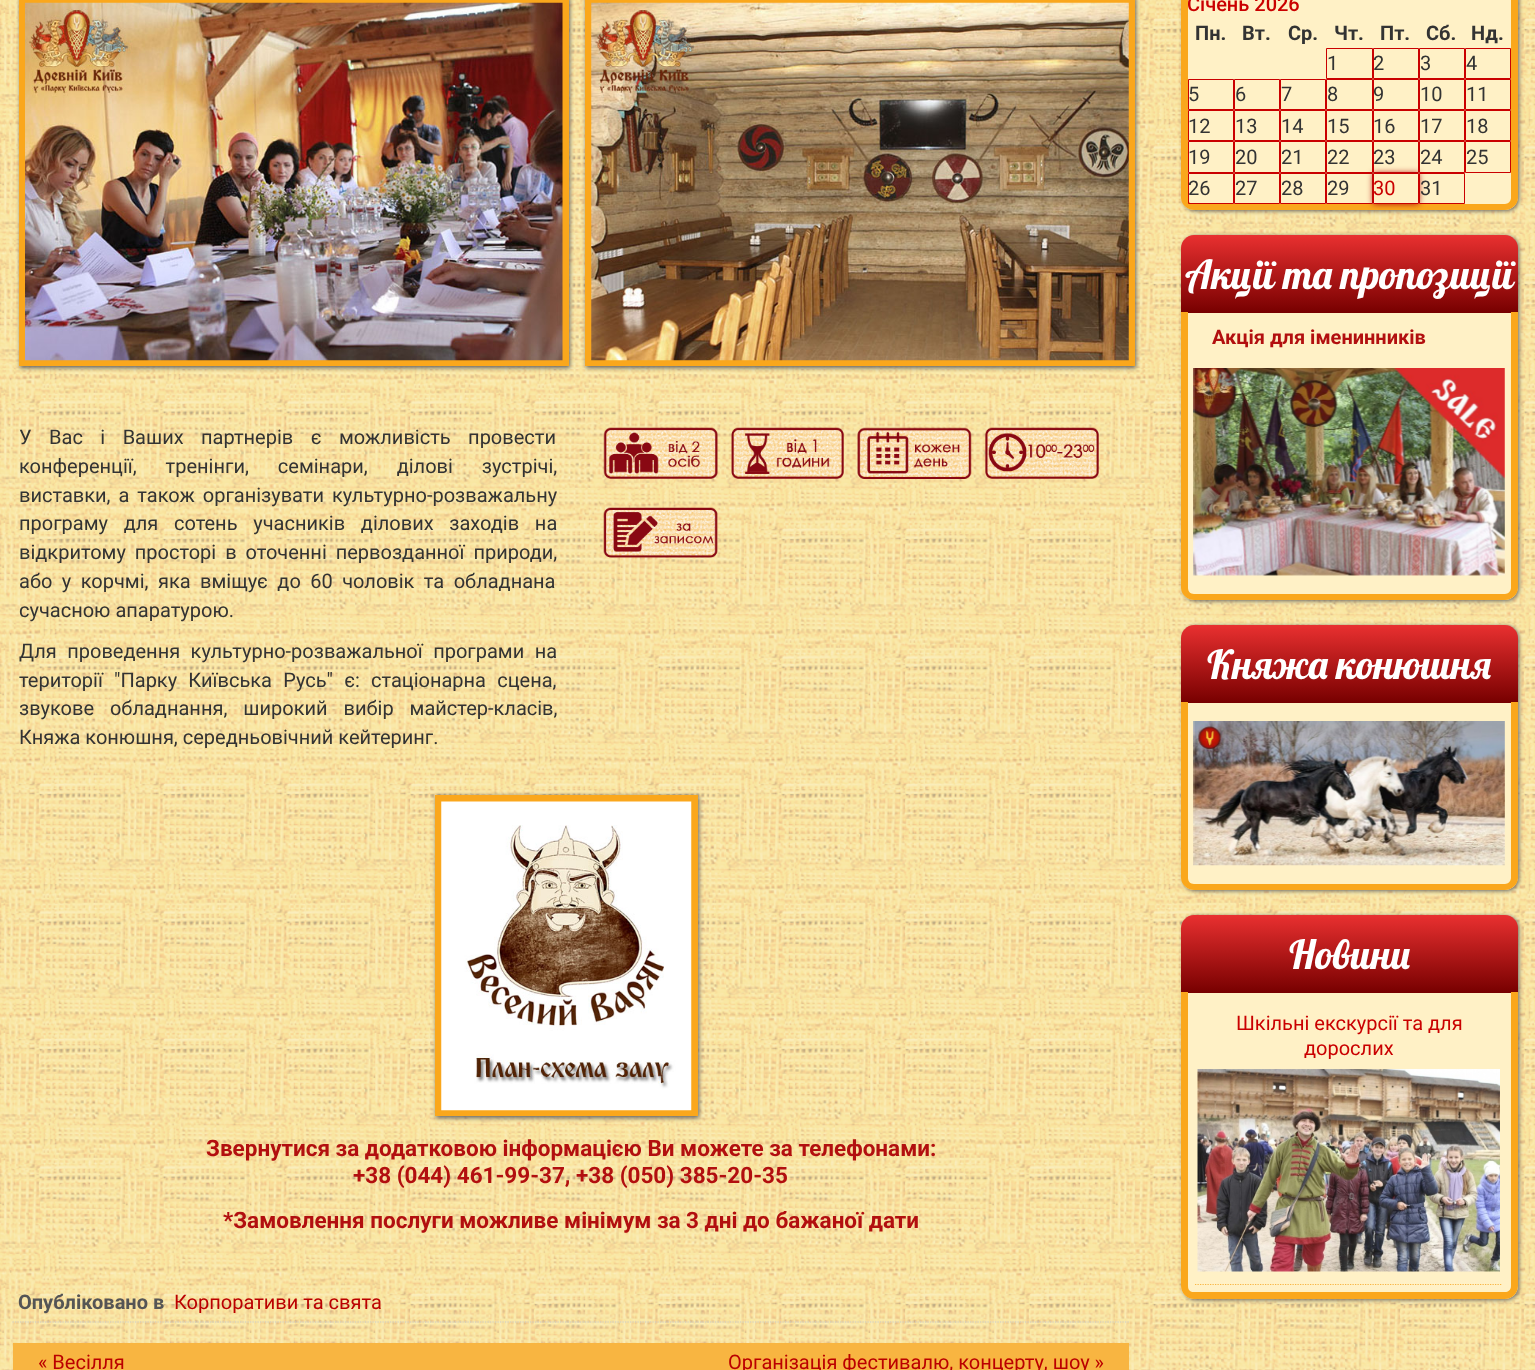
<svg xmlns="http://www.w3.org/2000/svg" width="1535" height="1370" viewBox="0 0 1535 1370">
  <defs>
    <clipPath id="clip1"><path d="M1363 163H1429V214H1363ZM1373 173H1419V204H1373Z" clip-rule="evenodd"/></clipPath>
    <linearGradient id="g1" gradientUnits="userSpaceOnUse" x1="1349" y1="235" x2="1349" y2="313"><stop offset="0" stop-color="#e93030"/><stop offset="1" stop-color="#700"/></linearGradient>
    <linearGradient id="g2" gradientUnits="userSpaceOnUse" x1="1349" y1="625" x2="1349" y2="703"><stop offset="0" stop-color="#e93030"/><stop offset="1" stop-color="#700"/></linearGradient>
    <linearGradient id="g3" gradientUnits="userSpaceOnUse" x1="1349" y1="915" x2="1349" y2="993"><stop offset="0" stop-color="#e93030"/><stop offset="1" stop-color="#700"/></linearGradient>
  </defs>
  <rect width="100%" height="100%" fill="#fbeec6"/>
  <image x="0" y="0" width="1535" height="1370" href="img/1.png"/>
  <path d="M20 -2h550v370H20z" fill="#666" filter="blur(2px)"/>
  <path d="M19 0h550v366H19z" fill="#faa71c"/>
  <image x="25" y="2" width="538" height="359" href="img/2.png"/>
  <path d="M586 -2h550v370H586z" fill="#666" filter="blur(2px)"/>
  <path d="M585 0h550v366H585z" fill="#faa71c"/>
  <image x="591" y="2" width="538" height="359" href="img/3.png"/>
  <image x="603" y="427" width="115" height="52" href="img/4.png"/>
  <image x="731" y="427" width="113" height="52" href="img/5.png"/>
  <image x="857" y="427" width="115" height="52" href="img/6.png"/>
  <image x="985" y="427" width="114" height="52" href="img/7.png"/>
  <image x="603" y="507" width="115" height="51" href="img/8.png"/>
  <path d="M436 796h263v322H436z" fill="#666" filter="blur(2px)"/>
  <path d="M435 795h263v321H435z" fill="#faa71c"/>
  <image x="441" y="801" width="251" height="310" href="img/9.png"/>
  <path d="M12.5 1322H1129" fill="none" stroke="#ccc" stroke-width="1.2" stroke-dasharray="1.25 1.25"/>
  <path d="M13 1343h1116v27H13z" fill="#f8b541"/>
  <rect x="1183" y="-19" width="336" height="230" rx="13" fill="#666" filter="blur(2px)"/>
  <path d="M1181-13H1518V197C1518 204 1512 210 1505 210H1194C1187 210 1181 204 1181 197Z" fill="#fff1c6"/>
  <path d="M1181-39H1518V198C1518 204 1512 210 1505 210H1194C1187 210 1181 204 1181 198ZM1188-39H1511V198C1511 201 1508 204 1505 204H1194C1190 204 1188 201 1188 198Z" fill="#faa71c" fill-rule="evenodd"/>
  <path d="M1326.5 48.5h46v30H1326.5z" fill="none" stroke="#ca0000"/>
  <path d="M1373.5 48.5h45v30H1373.5z" fill="none" stroke="#ca0000"/>
  <path d="M1419.5 48.5h45v30H1419.5z" fill="none" stroke="#ca0000"/>
  <path d="M1465.5 48.5h45v30H1465.5z" fill="none" stroke="#ca0000"/>
  <path d="M1188.5 79.5h45v30H1188.5z" fill="none" stroke="#ca0000"/>
  <path d="M1234.5 79.5h45v30H1234.5z" fill="none" stroke="#ca0000"/>
  <path d="M1280.5 79.5h45v30H1280.5z" fill="none" stroke="#ca0000"/>
  <path d="M1326.5 79.5h46v30H1326.5z" fill="none" stroke="#ca0000"/>
  <path d="M1373.5 79.5h45v30H1373.5z" fill="none" stroke="#ca0000"/>
  <path d="M1419.5 79.5h45v30H1419.5z" fill="none" stroke="#ca0000"/>
  <path d="M1465.5 79.5h45v30H1465.5z" fill="none" stroke="#ca0000"/>
  <path d="M1188.5 110.5h45v30H1188.5z" fill="none" stroke="#ca0000"/>
  <path d="M1234.5 110.5h45v30H1234.5z" fill="none" stroke="#ca0000"/>
  <path d="M1280.5 110.5h45v30H1280.5z" fill="none" stroke="#ca0000"/>
  <path d="M1326.5 110.5h46v30H1326.5z" fill="none" stroke="#ca0000"/>
  <path d="M1373.5 110.5h45v30H1373.5z" fill="none" stroke="#ca0000"/>
  <path d="M1419.5 110.5h45v30H1419.5z" fill="none" stroke="#ca0000"/>
  <path d="M1465.5 110.5h45v30H1465.5z" fill="none" stroke="#ca0000"/>
  <path d="M1188.5 141.5h45v31H1188.5z" fill="none" stroke="#ca0000"/>
  <path d="M1234.5 141.5h45v31H1234.5z" fill="none" stroke="#ca0000"/>
  <path d="M1280.5 141.5h45v31H1280.5z" fill="none" stroke="#ca0000"/>
  <path d="M1326.5 141.5h46v31H1326.5z" fill="none" stroke="#ca0000"/>
  <path d="M1373.5 141.5h45v31H1373.5z" fill="none" stroke="#ca0000"/>
  <path d="M1419.5 141.5h45v31H1419.5z" fill="none" stroke="#ca0000"/>
  <path d="M1465.5 141.5h45v31H1465.5z" fill="none" stroke="#ca0000"/>
  <path d="M1188.5 173.5h45v30H1188.5z" fill="none" stroke="#ca0000"/>
  <path d="M1234.5 173.5h45v30H1234.5z" fill="none" stroke="#ca0000"/>
  <path d="M1280.5 173.5h45v30H1280.5z" fill="none" stroke="#ca0000"/>
  <path d="M1326.5 173.5h46v30H1326.5z" fill="none" stroke="#ca0000"/>
  <g clip-path="url(#clip1)">
    <path d="M1373 173h46v31H1373z" fill="#b20f0f" filter="blur(3px)"/>
  </g>
  <path d="M1373.5 173.5h45v30H1373.5z" fill="none" stroke="#ca0000"/>
  <path d="M1419.5 173.5h45v30H1419.5z" fill="none" stroke="#ca0000"/>
  <rect x="1183" y="236" width="336" height="365" rx="13" fill="#666" filter="blur(2px)"/>
  <path d="M1194 235H1505C1512 235 1518 241 1518 248V313H1181V248C1181 241 1187 235 1194 235Z" fill="url(#g1)"/>
  <path d="M1181 313H1518V587C1518 594 1512 600 1505 600H1194C1187 600 1181 594 1181 587Z" fill="#fff1c6"/>
  <path d="M1181 312H1518V588C1518 594 1512 600 1505 600H1194C1187 600 1181 594 1181 588ZM1188 312H1511V588C1511 591 1508 594 1505 594H1194C1190 594 1188 591 1188 588Z" fill="#faa71c" fill-rule="evenodd"/>
  <image x="1193" y="368" width="312" height="208" href="img/10.png"/>
  <rect x="1183" y="626" width="336" height="265" rx="13" fill="#666" filter="blur(2px)"/>
  <path d="M1194 625H1505C1512 625 1518 631 1518 638V703H1181V638C1181 631 1187 625 1194 625Z" fill="url(#g2)"/>
  <path d="M1181 703H1518V877C1518 884 1512 890 1505 890H1194C1187 890 1181 884 1181 877Z" fill="#fff1c6"/>
  <path d="M1181 702H1518V878C1518 884 1512 890 1505 890H1194C1187 890 1181 884 1181 878ZM1188 702H1511V878C1511 881 1508 884 1505 884H1194C1190 884 1188 881 1188 878Z" fill="#faa71c" fill-rule="evenodd"/>
  <image x="1193" y="721" width="312" height="145" href="img/11.png"/>
  <rect x="1183" y="916" width="336" height="384" rx="13" fill="#666" filter="blur(2px)"/>
  <path d="M1194 915H1505C1512 915 1518 921 1518 928V993H1181V928C1181 921 1187 915 1194 915Z" fill="url(#g3)"/>
  <path d="M1181 993H1518V1286C1518 1293 1512 1299 1505 1299H1194C1187 1299 1181 1293 1181 1286Z" fill="#fff1c6"/>
  <path d="M1181 992H1518V1286C1518 1293 1512 1299 1505 1299H1194C1187 1299 1181 1293 1181 1286ZM1188 992H1511V1286C1511 1290 1508 1292 1505 1292H1194C1190 1292 1188 1290 1188 1286Z" fill="#faa71c" fill-rule="evenodd"/>
  <path d="M1195 1284.5H1502.5" fill="none" stroke="#f8b541" stroke-width="1.2" stroke-dasharray="1.25 1.25"/>
  <image x="1197" y="1069" width="303" height="203" href="img/12.png"/>
  <g font-family="Roboto" font-size="20" fill="#333">
    <text x="19" y="444" word-spacing="12.5">У Вас і Ваших партнерів є можливість провести</text>
    <text x="19" y="473" word-spacing="24">конференції, тренінги, семінари, ділові зустрічі,</text>
    <text x="19" y="502" word-spacing="3">виставки, а також організувати культурно-розважальну</text>
    <text x="19" y="530" word-spacing="10.75">програму для сотень учасників ділових заходів на</text>
    <text x="19" y="559" word-spacing="4">відкритому просторі в оточенні первозданної природи,</text>
    <text x="19" y="588" word-spacing="4.5">або у корчмі, яка вміщує до 60 чоловік та обладнана</text>
    <text x="19" y="617">сучасною апаратурою.</text>
    <text x="19" y="658" word-spacing="5.5">Для проведення культурно-розважальної програми на</text>
    <text x="19" y="687" word-spacing="6.25">території "Парку Київська Русь" є: стаціонарна сцена,</text>
    <text x="19" y="715" word-spacing="11">звукове обладнання, широкий вибір майстер-класів,</text>
    <text x="19" y="744">Княжа конюшня, середньовічний кейтеринг.</text>
  </g>
  <g font-family="Roboto" font-size="22.5" font-weight="bold" fill="#b20f0f">
    <text x="206" y="1156">Звернутися за додатковою інформацією Ви можете за телефонами:</text>
    <text x="353" y="1183">+38 (044) 461-99-37, +38 (050) 385-20-35</text>
    <text x="223" y="1228">*Замовлення послуги можливе мінімум за 3 дні до бажаної дати</text>
  </g>
  <text x="18" y="1309" font-family="Roboto" font-size="20" font-weight="bold" fill="#555">Опубліковано в</text>
  <g font-family="Roboto" font-size="20" fill="#b00">
    <text x="174" y="1309">Корпоративи та свята</text>
    <text x="38" y="1369">« Весілля</text>
    <text x="728" y="1369">Організація фестивалю, концерту, шоу »</text>
  </g>
  <text x="1187" y="11" font-family="Roboto" font-size="20" font-weight="500" fill="#ca0000">Січень 2026</text>
  <g font-family="Roboto" font-size="20" font-weight="bold" fill="#333">
    <text x="1195" y="40">Пн.</text>
    <text x="1242" y="40">Вт.</text>
    <text x="1288" y="40">Ср.</text>
    <text x="1334" y="40">Чт.</text>
    <text x="1380" y="40">Пт.</text>
    <text x="1426" y="40">Сб.</text>
    <text x="1471" y="40">Нд.</text>
  </g>
  <g font-family="Roboto" font-size="20" fill="#333">
    <text x="1327" y="70">1</text>
    <text x="1373" y="70">2</text>
    <text x="1420" y="70">3</text>
    <text x="1466" y="70">4</text>
    <text x="1188" y="101">5</text>
    <text x="1235" y="101">6</text>
    <text x="1281" y="101">7</text>
    <text x="1327" y="101">8</text>
    <text x="1373" y="101">9</text>
    <text x="1420" y="101">10</text>
    <text x="1466" y="101">11</text>
    <text x="1188" y="133">12</text>
    <text x="1235" y="133">13</text>
    <text x="1281" y="133">14</text>
    <text x="1327" y="133">15</text>
    <text x="1373" y="133">16</text>
    <text x="1420" y="133">17</text>
    <text x="1466" y="133">18</text>
    <text x="1188" y="164">19</text>
    <text x="1235" y="164">20</text>
    <text x="1281" y="164">21</text>
    <text x="1327" y="164">22</text>
    <text x="1373" y="164">23</text>
    <text x="1420" y="164">24</text>
    <text x="1466" y="164">25</text>
    <text x="1188" y="195">26</text>
    <text x="1235" y="195">27</text>
    <text x="1281" y="195">28</text>
    <text x="1327" y="195">29</text>
  </g>
  <text x="1373" y="195" font-family="Roboto" font-size="20" fill="#ca0000">30</text>
  <text x="1420" y="195" font-family="Roboto" font-size="20" fill="#333">31</text>
  <text x="1185" y="289" font-family="Lobster" font-size="40" fill="#fff">Акції та пропозиції</text>
  <text x="1212" y="344" font-family="Roboto" font-size="20" font-weight="bold" fill="#b20f0f">Акція для іменинників</text>
  <g font-family="Lobster" font-size="40" fill="#fff">
    <text x="1207" y="679">Княжа конюшня</text>
    <text x="1289" y="969">Новини</text>
  </g>
  <g font-family="Roboto" font-size="20" fill="#ca0000">
    <text x="1236" y="1030">Шкільні екскурсії та для</text>
    <text x="1304" y="1055">дорослих</text>
  </g>
</svg>
